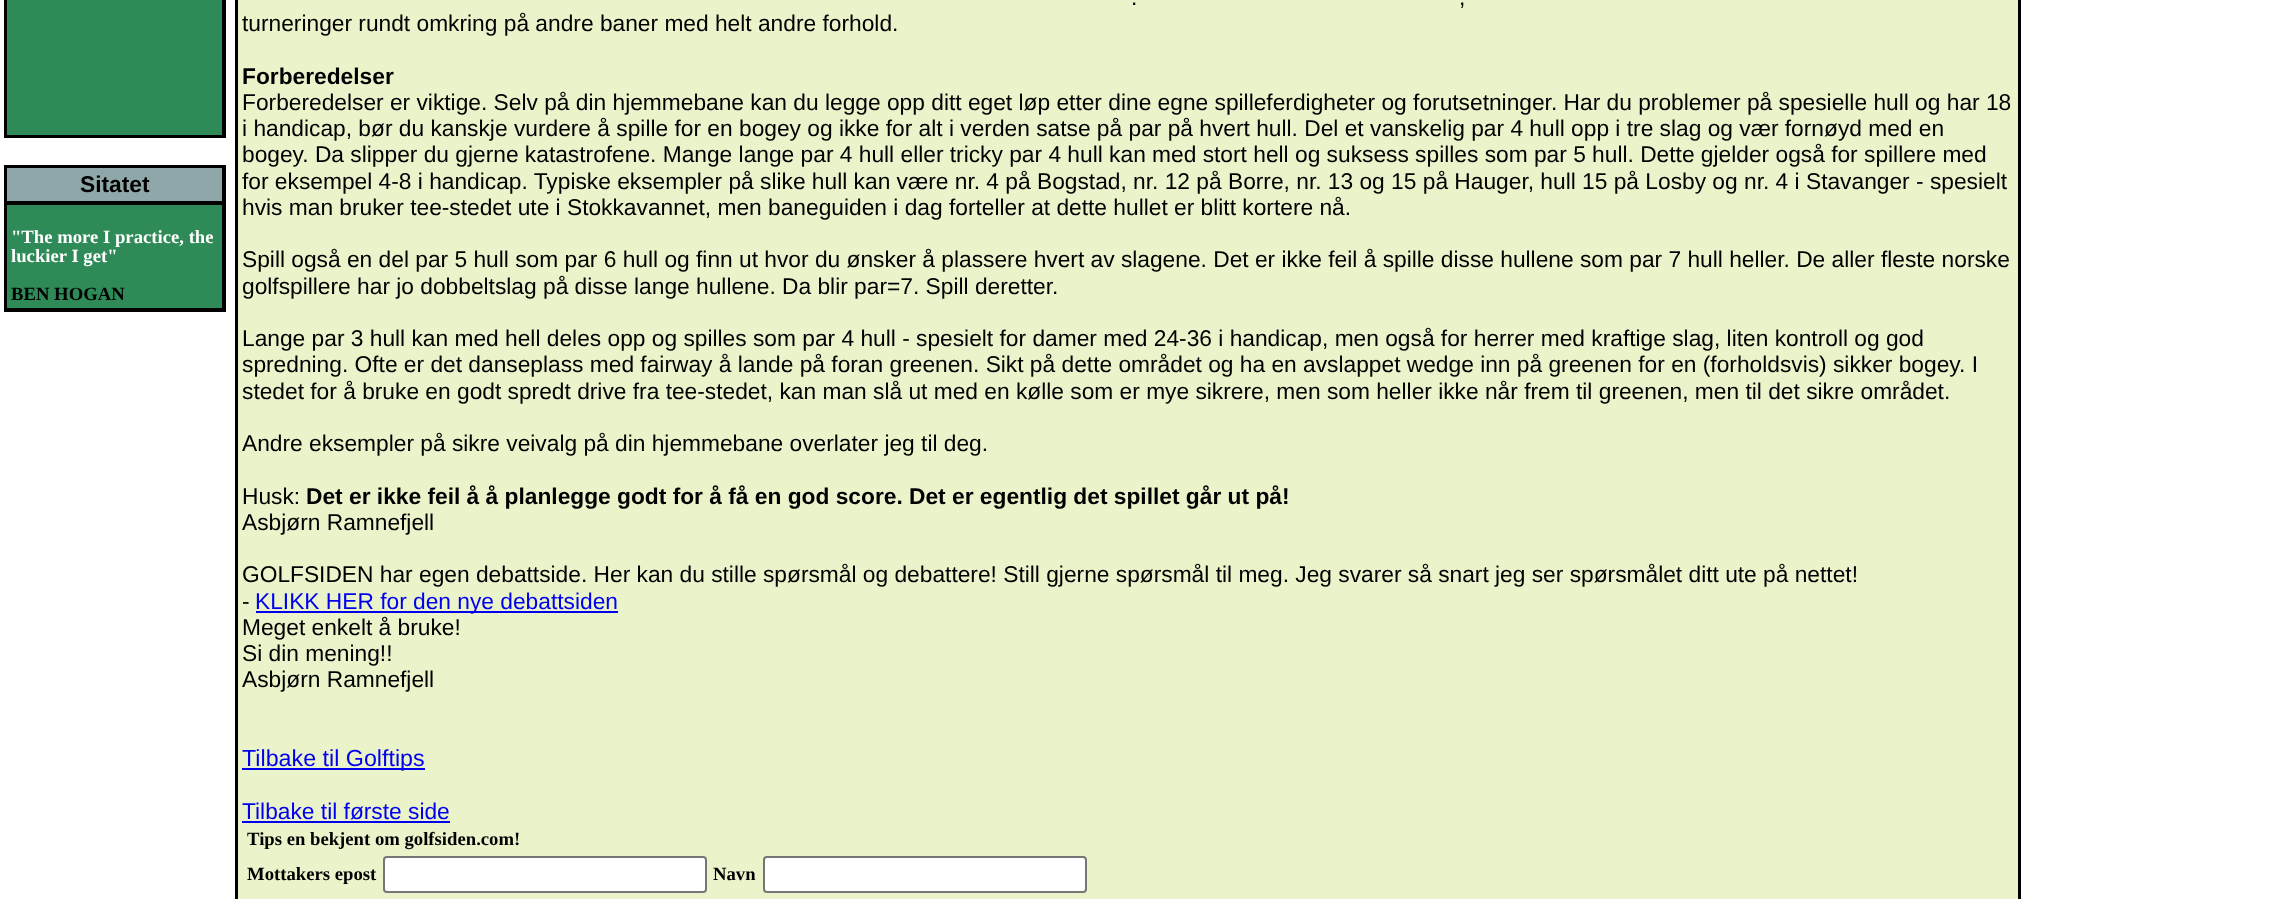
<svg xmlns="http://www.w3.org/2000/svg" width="2295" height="899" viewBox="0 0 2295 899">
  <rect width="100%" height="100%" fill="#fff"/>
  <path d="M4 0h222v138H4z" fill="#000"/>
  <path d="M7 0h215v135H7z" fill="#2e8b57"/>
  <path d="M4 165h222v147H4z" fill="#000"/>
  <path d="M7 168h215v33H7z" fill="#8fa7a8"/>
  <path d="M7 205h215v103H7z" fill="#2e8b57"/>
  <path d="M235 0h1786v899H235z" fill="#000"/>
  <path d="M238 0h1780v899H238z" fill="#ebf3cb"/>
  <path d="M256 611h362v2H256z" fill="#00e"/>
  <path d="M242 768h183v2H242z" fill="#00e"/>
  <path d="M242 821h208v2H242z" fill="#00e"/>
  <rect x="384" y="857" width="322" height="35" rx="3" fill="#fff" stroke="#767676" stroke-width="2"/>
  <rect x="764" y="857" width="322" height="35" rx="3" fill="#fff" stroke="#767676" stroke-width="2"/>
  <text x="80" y="192" font-family="Liberation Sans" font-size="22.75" font-weight="bold" fill="#000">Sitatet</text>
  <g font-family="Liberation Serif" font-size="18.7" font-weight="bold" fill="#fff">
    <text x="11" y="243">"The more I practice, the</text>
    <text x="11" y="262">luckier I get"</text>
  </g>
  <text x="11" y="300" font-family="Liberation Serif" font-size="18.7" font-weight="bold" fill="#000">BEN HOGAN</text>
  <g font-family="Liberation Sans" font-size="22.75" fill="#000">
    <text x="1131" y="5">.</text>
    <text x="1459" y="5">,</text>
    <text x="242" y="31">turneringer rundt omkring på andre baner med helt andre forhold.</text>
  </g>
  <text x="242" y="84" font-family="Liberation Sans" font-size="22.75" font-weight="bold" fill="#000">Forberedelser</text>
  <g font-family="Liberation Sans" font-size="22.75" fill="#000">
    <text x="242" y="110">Forberedelser er viktige. Selv på din hjemmebane kan du legge opp ditt eget løp etter dine egne spilleferdigheter og forutsetninger. Har du problemer på spesielle hull og har 18</text>
    <text x="242" y="136">i handicap, bør du kanskje vurdere å spille for en bogey og ikke for alt i verden satse på par på hvert hull. Del et vanskelig par 4 hull opp i tre slag og vær fornøyd med en</text>
    <text x="242" y="162">bogey. Da slipper du gjerne katastrofene. Mange lange par 4 hull eller tricky par 4 hull kan med stort hell og suksess spilles som par 5 hull. Dette gjelder også for spillere med</text>
    <text x="242" y="189">for eksempel 4-8 i handicap. Typiske eksempler på slike hull kan være nr. 4 på Bogstad, nr. 12 på Borre, nr. 13 og 15 på Hauger, hull 15 på Losby og nr. 4 i Stavanger - spesielt</text>
    <text x="242" y="215">hvis man bruker tee-stedet ute i Stokkavannet, men baneguiden i dag forteller at dette hullet er blitt kortere nå.</text>
    <text x="242" y="267">Spill også en del par 5 hull som par 6 hull og finn ut hvor du ønsker å plassere hvert av slagene. Det er ikke feil å spille disse hullene som par 7 hull heller. De aller fleste norske</text>
    <text x="242" y="294">golfspillere har jo dobbeltslag på disse lange hullene. Da blir par=7. Spill deretter.</text>
    <text x="242" y="346">Lange par 3 hull kan med hell deles opp og spilles som par 4 hull - spesielt for damer med 24-36 i handicap, men også for herrer med kraftige slag, liten kontroll og god</text>
    <text x="242" y="372">spredning. Ofte er det danseplass med fairway å lande på foran greenen. Sikt på dette området og ha en avslappet wedge inn på greenen for en (forholdsvis) sikker bogey. I</text>
    <text x="242" y="399">stedet for å bruke en godt spredt drive fra tee-stedet, kan man slå ut med en kølle som er mye sikrere, men som heller ikke når frem til greenen, men til det sikre området.</text>
    <text x="242" y="451">Andre eksempler på sikre veivalg på din hjemmebane overlater jeg til deg.</text>
    <text x="242" y="504">Husk:</text>
  </g>
  <text x="306" y="504" font-family="Liberation Sans" font-size="22.75" font-weight="bold" fill="#000">Det er ikke feil å å planlegge godt for å få en god score. Det er egentlig det spillet går ut på!</text>
  <g font-family="Liberation Sans" font-size="22.75" fill="#000">
    <text x="242" y="530">Asbjørn Ramnefjell</text>
    <text x="242" y="582">GOLFSIDEN har egen debattside. Her kan du stille spørsmål og debattere! Still gjerne spørsmål til meg. Jeg svarer så snart jeg ser spørsmålet ditt ute på nettet!</text>
    <text x="242" y="609">-</text>
  </g>
  <text x="255" y="609" font-family="Liberation Sans" font-size="22.75" fill="#00e">KLIKK HER for den nye debattsiden</text>
  <g font-family="Liberation Sans" font-size="22.75" fill="#000">
    <text x="242" y="635">Meget enkelt å bruke!</text>
    <text x="242" y="661">Si din mening!!</text>
    <text x="242" y="687">Asbjørn Ramnefjell</text>
  </g>
  <text x="242" y="766" font-family="Liberation Sans" font-size="23.25" fill="#00e">Tilbake til Golftips</text>
  <text x="242" y="819" font-family="Liberation Sans" font-size="22.75" fill="#00e">Tilbake til første side</text>
  <g font-family="Liberation Serif" font-size="18.7" font-weight="bold" fill="#000">
    <text x="247" y="845">Tips en bekjent om golfsiden.com!</text>
    <text x="247" y="880">Mottakers epost</text>
    <text x="713" y="880">Navn</text>
  </g>
</svg>
